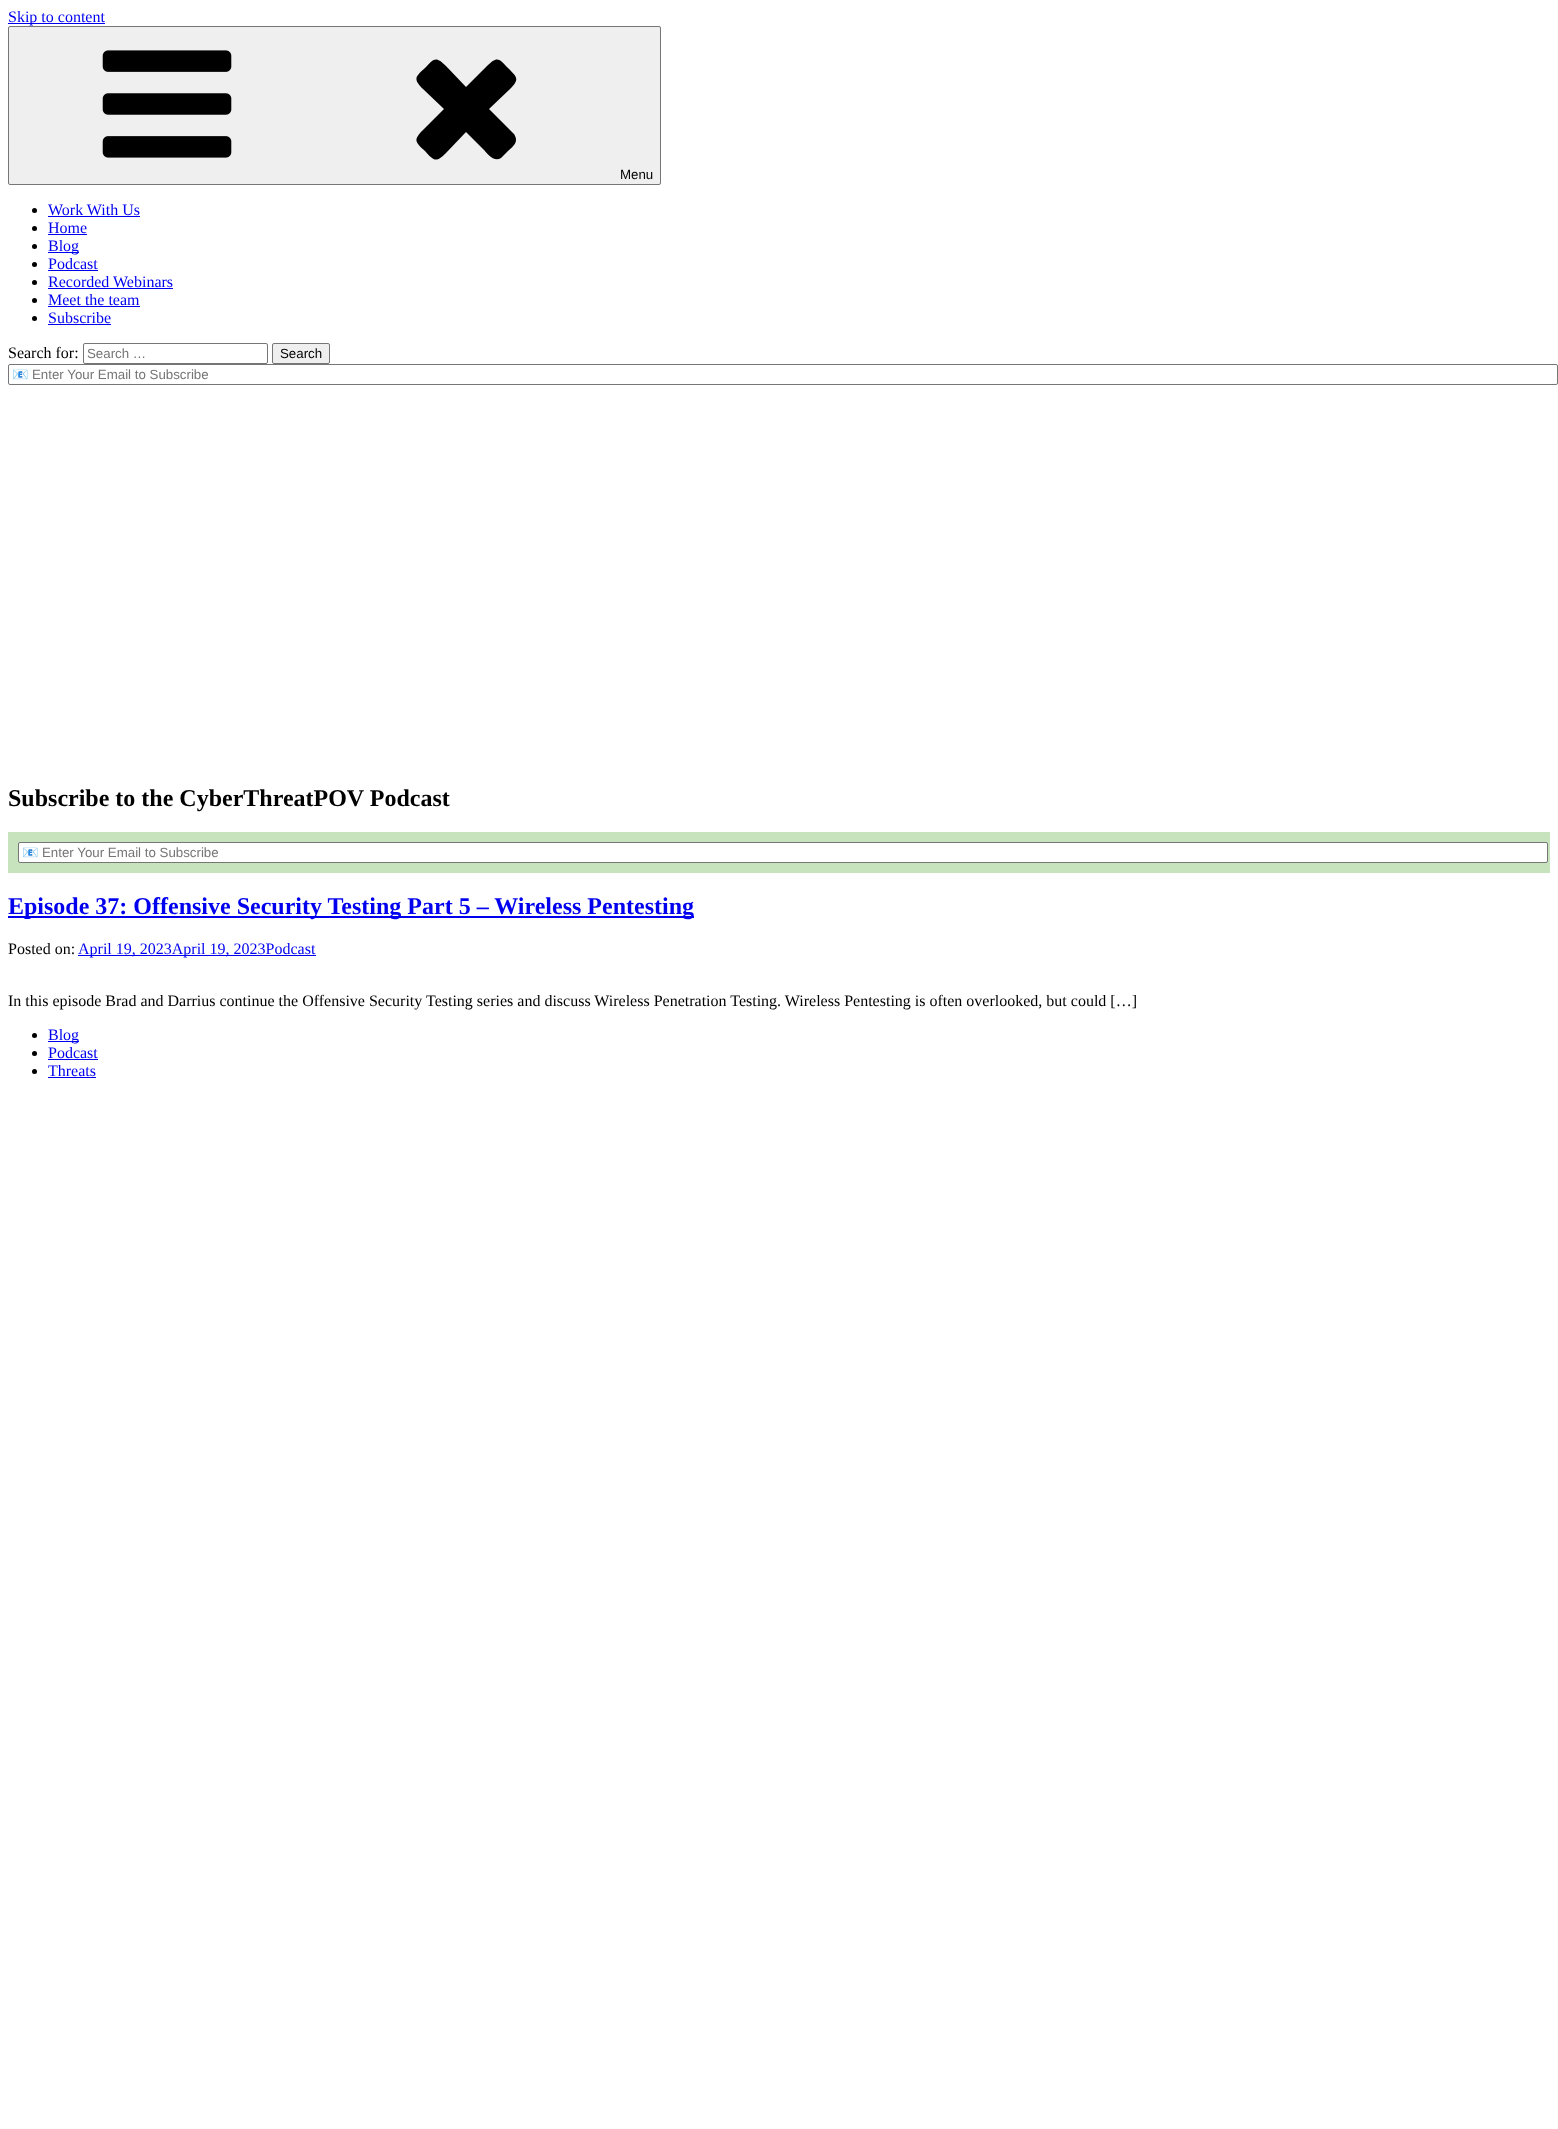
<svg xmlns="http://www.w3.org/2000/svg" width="1558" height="2129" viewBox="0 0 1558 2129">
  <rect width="100%" height="100%" fill="#fff"/>
  <path d="M8 23h97v1H8z" fill="#00e"/>
  <rect x="8.5" y="26.5" width="652" height="158" rx="1.5" fill="#efefef" stroke="#767676"/>
  <image x="102" y="50" width="130" height="108" href="img/1.png"/>
  <path d="M516 140C516 145 510 149 506 153L501 158C494 163 487 153 483 149L466 132L446 153C436 163 434 161 425 151C415 142 413 140 423 130L444 109L423 89C413 79 415 77 425 68C434 58 436 56 446 66L466 87L487 66C497 56 499 58 508 68C517 77 520 79 510 89L489 109L514 134C515 136 516 137 516 140Z" fill="#000"/>
  <circle cx="34.5" cy="210.5" r="2.5" fill="#000"/>
  <path d="M48 216h92v1H48z" fill="#00e"/>
  <circle cx="34.5" cy="228.5" r="2.5" fill="#000"/>
  <path d="M48 234h39v1H48z" fill="#00e"/>
  <circle cx="34.5" cy="246.5" r="2.5" fill="#000"/>
  <path d="M48 252h31v1H48z" fill="#00e"/>
  <circle cx="34.5" cy="264.5" r="2.5" fill="#000"/>
  <path d="M48 270h50v1H48z" fill="#00e"/>
  <circle cx="34.5" cy="282.5" r="2.5" fill="#000"/>
  <path d="M48 288h125v1H48z" fill="#00e"/>
  <circle cx="34.5" cy="300.5" r="2.5" fill="#000"/>
  <path d="M48 306h92v1H48z" fill="#00e"/>
  <circle cx="34.5" cy="318.5" r="2.5" fill="#000"/>
  <path d="M48 324h63v1H48z" fill="#00e"/>
  <rect x="83.5" y="343.5" width="184" height="20" rx="1.5" fill="none" stroke="#767676"/>
  <rect x="272.5" y="343.5" width="57" height="20" rx="1.5" fill="#efefef" stroke="#767676"/>
  <rect x="8.5" y="364.5" width="1549" height="20" rx="1.5" fill="none" stroke="#767676"/>
  <path d="M8 832h1542v41H8z" fill="#c7e3be"/>
  <rect x="18.5" y="842.5" width="1529" height="20" rx="1.5" fill="#fff" stroke="#767676"/>
  <path d="M8 916h686v2H8z" fill="#00e"/>
  <path d="M78 955h238v1H78z" fill="#00e"/>
  <circle cx="34.5" cy="1035.5" r="2.5" fill="#000"/>
  <path d="M48 1041h31v1H48z" fill="#00e"/>
  <circle cx="34.5" cy="1053.5" r="2.5" fill="#000"/>
  <path d="M48 1059h50v1H48z" fill="#00e"/>
  <circle cx="34.5" cy="1071.5" r="2.5" fill="#000"/>
  <path d="M48 1077h48v1H48z" fill="#00e"/>
  <text x="8" y="22" font-family="Liberation Serif" font-size="16" fill="#00e">Skip to content</text>
  <text x="620" y="179" font-family="Liberation Sans" font-size="13.3" fill="#000">Menu</text>
  <g font-family="Liberation Serif" font-size="16" fill="#00e">
    <text x="48" y="215">Work With Us</text>
    <text x="48" y="233">Home</text>
    <text x="48" y="251">Blog</text>
    <text x="48" y="269">Podcast</text>
    <text x="48" y="287">Recorded Webinars</text>
    <text x="48" y="305">Meet the team</text>
    <text x="48" y="323">Subscribe</text>
  </g>
  <text x="8" y="358" font-family="Liberation Serif" font-size="16" fill="#000">Search for:</text>
  <text x="87" y="358" font-family="Liberation Sans" font-size="13.3" fill="#757575">Search …</text>
  <text x="280" y="358" font-family="Liberation Sans" font-size="13.3" fill="#000">Search</text>
  <text x="12" y="379" font-family="Noto Color Emoji" font-size="13.3" fill="#757575">📧</text>
  <text x="32" y="379" font-family="Liberation Sans" font-size="13.3" fill="#757575">Enter Your Email to Subscribe</text>
  <text x="8" y="806" font-family="Liberation Serif" font-size="24" font-weight="bold" fill="#000">Subscribe to the CyberThreatPOV Podcast</text>
  <text x="22" y="857" font-family="Noto Color Emoji" font-size="13.3" fill="#757575">📧</text>
  <text x="42" y="857" font-family="Liberation Sans" font-size="13.3" fill="#757575">Enter Your Email to Subscribe</text>
  <text x="8" y="914" font-family="Liberation Serif" font-size="24" font-weight="bold" fill="#00e">Episode 37: Offensive Security Testing Part 5 – Wireless Pentesting</text>
  <text x="8" y="954" font-family="Liberation Serif" font-size="16" fill="#000">Posted on:</text>
  <text x="78" y="954" font-family="Liberation Serif" font-size="16" fill="#00e">April 19, 2023April 19, 2023Podcast</text>
  <text x="8" y="1006" font-family="Liberation Serif" font-size="16" fill="#000"> In this episode Brad and Darrius continue the Offensive Security Testing series and discuss Wireless Penetration Testing. Wireless Pentesting is often overlooked, but could […]</text>
  <g font-family="Liberation Serif" font-size="16" fill="#00e">
    <text x="48" y="1040">Blog</text>
    <text x="48" y="1058">Podcast</text>
    <text x="48" y="1076">Threats</text>
  </g>
</svg>
